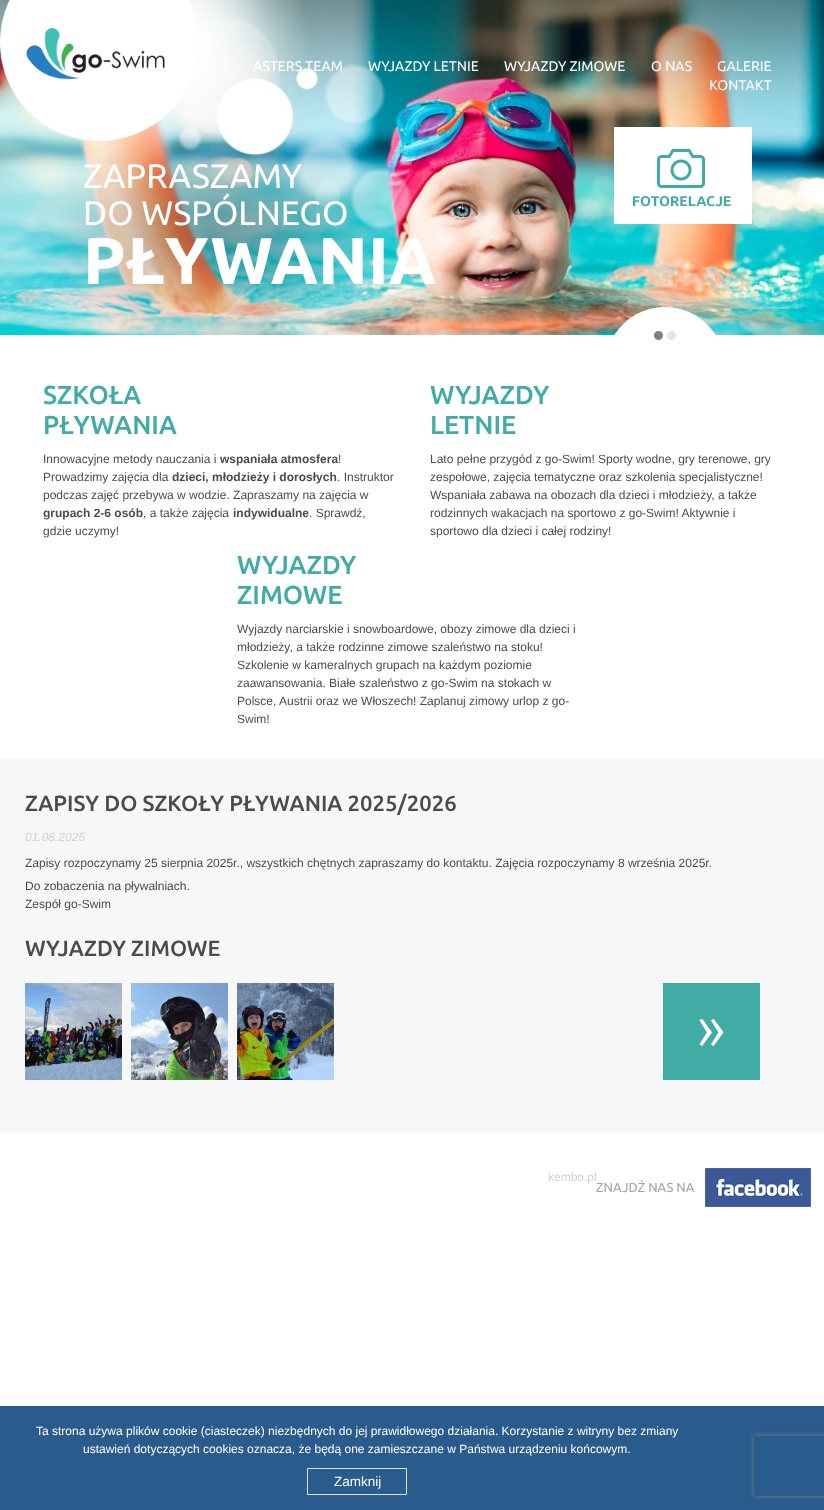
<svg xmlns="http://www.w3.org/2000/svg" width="824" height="1510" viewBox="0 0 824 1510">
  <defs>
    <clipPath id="clip1"><path d="M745 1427H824V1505H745ZM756 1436H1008C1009 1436 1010 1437 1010 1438V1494C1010 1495 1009 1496 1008 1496H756C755 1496 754 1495 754 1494V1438C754 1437 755 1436 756 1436Z" clip-rule="evenodd"/></clipPath>
  </defs>
  <rect width="100%" height="100%" fill="#fff"/>
  <image x="0" y="0" width="824" height="335" href="img/3.png"/>
  <image x="0" y="0" width="196" height="141" href="img/1.png"/>
  <image x="614" y="127" width="138" height="97" href="img/2.png"/>
  <path d="M665 307C698 307 725 334 725 367V382H605V367C605 334 632 307 665 307Z" fill="#fff"/>
  <circle cx="658.5" cy="335.5" r="4.5" fill="#7f7f7f"/>
  <circle cx="671.5" cy="335.5" r="4.5" fill="#e5e5e5"/>
  <path d="M0 758h824v375H0z" fill="#f7f7f7"/>
  <image x="25" y="983" width="97" height="97" href="img/4.png"/>
  <image x="131" y="983" width="97" height="97" href="img/5.png"/>
  <image x="237" y="983" width="97" height="97" href="img/6.png"/>
  <image x="663" y="983" width="97" height="97" href="img/7.png"/>
  <image x="705" y="1168" width="106" height="39" href="img/8.png"/>
  <path d="M0 1406h824v104H0z" fill="#295c8d"/>
  <path d="M307.5 1468.5h99v26H307.5z" fill="none" stroke="#d7e5f3"/>
  <g clip-path="url(#clip1)">
    <rect x="754" y="1436" width="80" height="60" rx="2" fill="#808080" filter="blur(2.5px)"/>
  </g>
  <g font-family="Ubuntu" font-size="14" fill="#fff">
    <text x="253" y="71">ASTERS TEAM</text>
    <text x="368" y="71">WYJAZDY LETNIE</text>
    <text x="504" y="71">WYJAZDY ZIMOWE</text>
    <text x="651" y="71">O NAS</text>
    <text x="717" y="71">GALERIE</text>
    <text x="709" y="90">KONTAKT</text>
  </g>
  <g font-family="Ubuntu" font-size="34" fill="#fff">
    <text x="83" y="188">ZAPRASZAMY</text>
    <text x="83" y="225">DO WSPÓLNEGO</text>
  </g>
  <text x="83" y="284" font-family="Ubuntu" font-size="66" font-weight="bold" fill="#fff">PŁYWANIA</text>
  <g font-family="Ubuntu" font-size="26" font-weight="500" fill="#41aba5">
    <text x="43" y="404">SZKOŁA</text>
    <text x="43" y="434">PŁYWANIA</text>
  </g>
  <text x="43" y="463" font-family="Liberation Sans" font-size="12" fill="#4b4b4c">Innowacyjne metody nauczania i</text>
  <text x="220" y="463" font-family="Liberation Sans" font-size="12" font-weight="bold" fill="#4b4b4c">wspaniała atmosfera</text>
  <g font-family="Liberation Sans" font-size="12" fill="#4b4b4c">
    <text x="338" y="463">!</text>
    <text x="43" y="481">Prowadzimy zajęcia dla</text>
  </g>
  <text x="172" y="481" font-family="Liberation Sans" font-size="12" font-weight="bold" fill="#4b4b4c">dzieci, młodzieży i dorosłych</text>
  <g font-family="Liberation Sans" font-size="12" fill="#4b4b4c">
    <text x="337" y="481">. Instruktor</text>
    <text x="43" y="499">podczas zajęć przebywa w wodzie. Zapraszamy na zajęcia w</text>
  </g>
  <text x="43" y="517" font-family="Liberation Sans" font-size="12" font-weight="bold" fill="#4b4b4c">grupach 2-6 osób</text>
  <text x="143" y="517" font-family="Liberation Sans" font-size="12" fill="#4b4b4c">, a także zajęcia</text>
  <text x="233" y="517" font-family="Liberation Sans" font-size="12" font-weight="bold" fill="#4b4b4c">indywidualne</text>
  <g font-family="Liberation Sans" font-size="12" fill="#4b4b4c">
    <text x="309" y="517">. Sprawdź,</text>
    <text x="43" y="535">gdzie uczymy!</text>
  </g>
  <g font-family="Ubuntu" font-size="26" font-weight="500" fill="#41aba5">
    <text x="430" y="404">WYJAZDY</text>
    <text x="430" y="434">LETNIE</text>
  </g>
  <g font-family="Liberation Sans" font-size="12" fill="#4b4b4c">
    <text x="430" y="463">Lato pełne przygód z go-Swim! Sporty wodne, gry terenowe, gry</text>
    <text x="430" y="481">zespołowe, zajęcia tematyczne oraz szkolenia specjalistyczne!</text>
    <text x="430" y="499">Wspaniała zabawa na obozach dla dzieci i młodzieży, a także</text>
    <text x="430" y="517">rodzinnych wakacjach na sportowo z go-Swim! Aktywnie i</text>
    <text x="430" y="535">sportowo dla dzieci i całej rodziny!</text>
  </g>
  <g font-family="Ubuntu" font-size="26" font-weight="500" fill="#41aba5">
    <text x="237" y="574">WYJAZDY</text>
    <text x="237" y="604">ZIMOWE</text>
  </g>
  <g font-family="Liberation Sans" font-size="12" fill="#4b4b4c">
    <text x="237" y="633">Wyjazdy narciarskie i snowboardowe, obozy zimowe dla dzieci i</text>
    <text x="237" y="651">młodzieży, a także rodzinne zimowe szaleństwo na stoku!</text>
    <text x="237" y="669">Szkolenie w kameralnych grupach na każdym poziomie</text>
    <text x="237" y="687">zaawansowania. Białe szaleństwo z go-Swim na stokach w</text>
    <text x="237" y="705">Polsce, Austrii oraz we Włoszech! Zaplanuj zimowy urlop z go-</text>
    <text x="237" y="723">Swim!</text>
  </g>
  <text x="25" y="811" font-family="Ubuntu" font-size="22" font-weight="500" fill="#4b4b4c">ZAPISY DO SZKOŁY PŁYWANIA 2025/2026</text>
  <text x="25" y="841" font-family="Liberation Sans" font-size="12" font-style="italic" fill="#d2d2d2">01.08.2025</text>
  <g font-family="Liberation Sans" font-size="12" fill="#4b4b4c">
    <text x="25" y="867">Zapisy rozpoczynamy 25 sierpnia 2025r., wszystkich chętnych zapraszamy do kontaktu. Zajęcia rozpoczynamy 8 września 2025r.</text>
    <text x="25" y="890">Do zobaczenia na pływalniach.</text>
    <text x="25" y="908">Zespół go-Swim</text>
  </g>
  <text x="25" y="956" font-family="Ubuntu" font-size="22" font-weight="500" fill="#4b4b4c">WYJAZDY ZIMOWE</text>
  <text x="548" y="1181" font-family="Liberation Sans" font-size="12" fill="#d2d2d2">kembo.pl</text>
  <text x="596" y="1192" font-family="Ubuntu" font-size="13" fill="#a5a5a5">ZNAJDŹ NAS NA</text>
  <g font-family="Liberation Sans" font-size="12" fill="#fff">
    <text x="36" y="1435">Ta strona używa plików cookie (ciasteczek) niezbędnych do jej prawidłowego działania. Korzystanie z witryny bez zmiany</text>
    <text x="83" y="1453">ustawień dotyczących cookies oznacza, że będą one zamieszczane w Państwa urządzeniu końcowym.</text>
  </g>
  <text x="334" y="1486" font-family="Liberation Sans" font-size="13.5" fill="#fff">Zamknij</text>
</svg>
